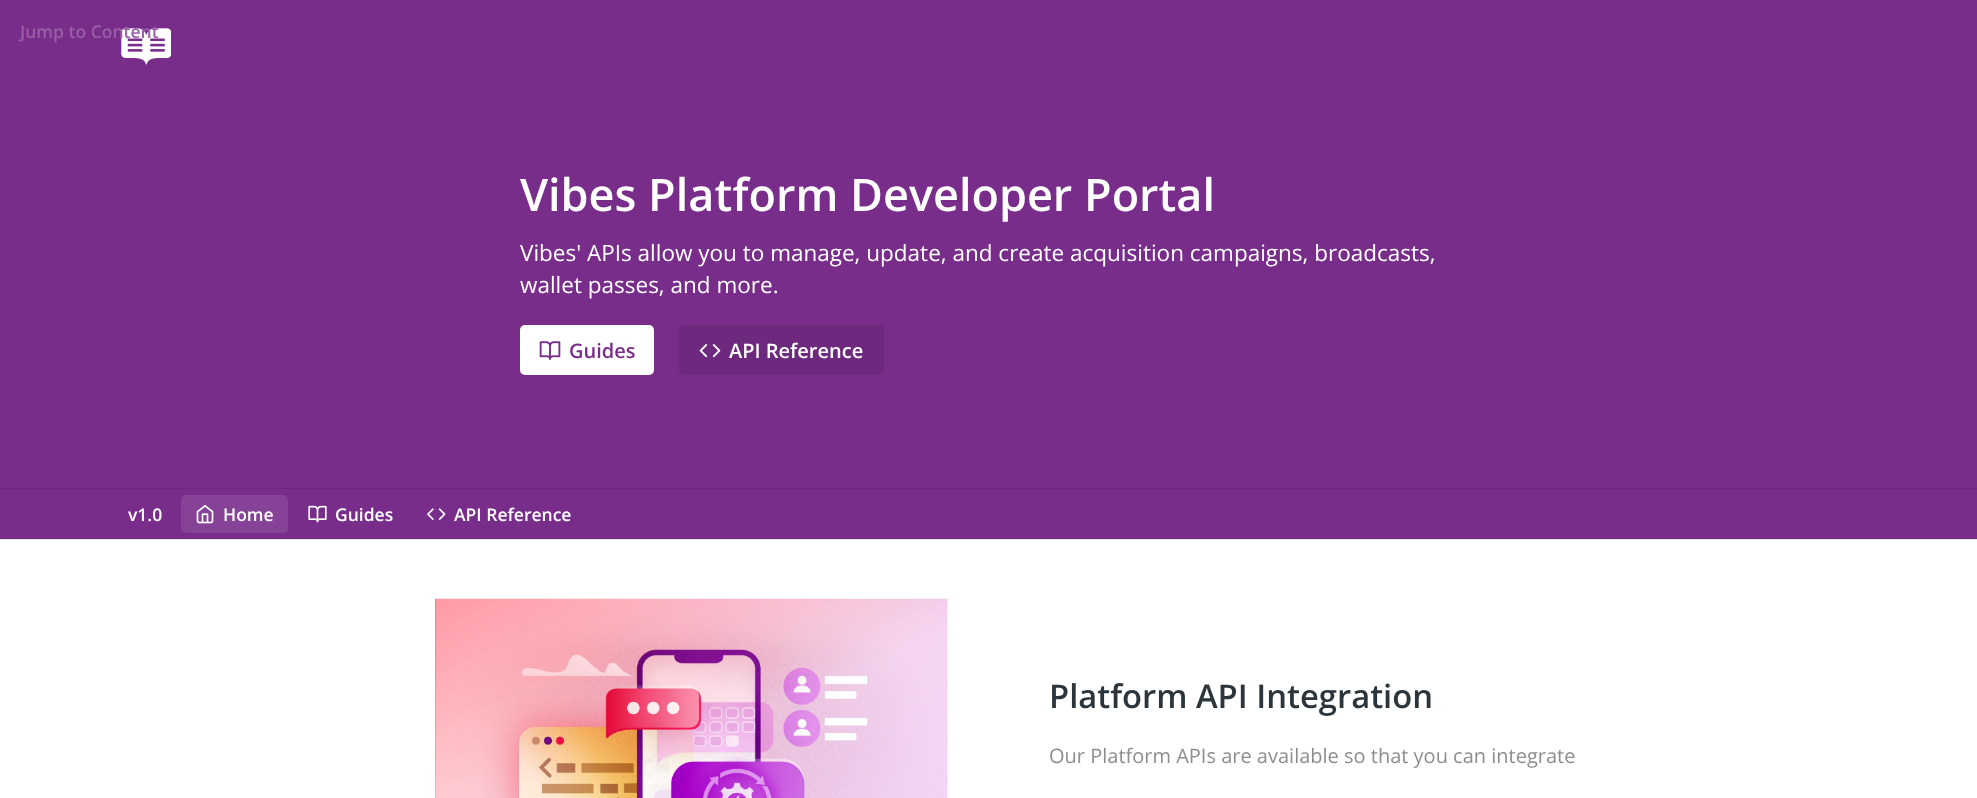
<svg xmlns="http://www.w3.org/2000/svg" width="1977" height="798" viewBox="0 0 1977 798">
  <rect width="100%" height="100%" fill="#fff"/>
  <path d="M0 539V540H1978V1V539Z" fill="#e6e6e6"/>
  <path d="M0 0h1977v539H0z" fill="#792d8b"/>
  <path d="M0 488h1977v1H0z" fill="#6d297d"/>
  <image x="121" y="28" width="50" height="37" href="img/1.png"/>
  <rect x="520" y="325" width="134" height="50" rx="5" fill="#fff"/>
  <image x="539" y="341" width="22" height="19" href="img/2.png"/>
  <rect x="679" y="325" width="205" height="50" rx="5" fill="#6d297d"/>
  <image x="699" y="344" width="22" height="14" href="img/3.png"/>
  <rect x="181" y="495" width="107" height="38" rx="5" fill="#864297"/>
  <image x="196" y="505" width="18" height="19" href="img/4.png"/>
  <image x="308" y="505" width="19" height="18" href="img/5.png"/>
  <image x="427" y="508" width="19" height="12" href="img/6.png"/>
  <image x="435" y="598" width="513" height="200" href="img/7.png"/>
  <text x="20" y="38" font-family="Open Sans" font-size="17.5" font-weight="600" fill="#995fa6">Jump to Content</text>
  <text x="520" y="211" font-family="Open Sans" font-size="45" font-weight="600" fill="#fff">Vibes Platform Developer Portal</text>
  <g font-family="Open Sans" font-size="22.5" fill="#fff">
    <text x="520" y="261">Vibes' APIs allow you to manage, update, and create acquisition campaigns, broadcasts,</text>
    <text x="520" y="293">wallet passes, and more.</text>
  </g>
  <text x="569" y="358" font-family="Open Sans" font-size="20" font-weight="600" fill="#792d8b">Guides</text>
  <text x="729" y="358" font-family="Open Sans" font-size="20" font-weight="600" fill="#fff">API Reference</text>
  <g font-family="Open Sans" font-size="17.5" font-weight="600" fill="#fff">
    <text x="128" y="521">v1.0</text>
    <text x="223" y="521">Home</text>
    <text x="335" y="521">Guides</text>
    <text x="454" y="521">API Reference</text>
  </g>
  <text x="1049" y="708" font-family="Open Sans" font-size="32.75" font-weight="600" fill="#2b353b">Platform API Integration</text>
  <text x="1049" y="763" font-family="Open Sans" font-size="20" fill="#8e8e8e">Our Platform APIs are available so that you can integrate</text>
</svg>
